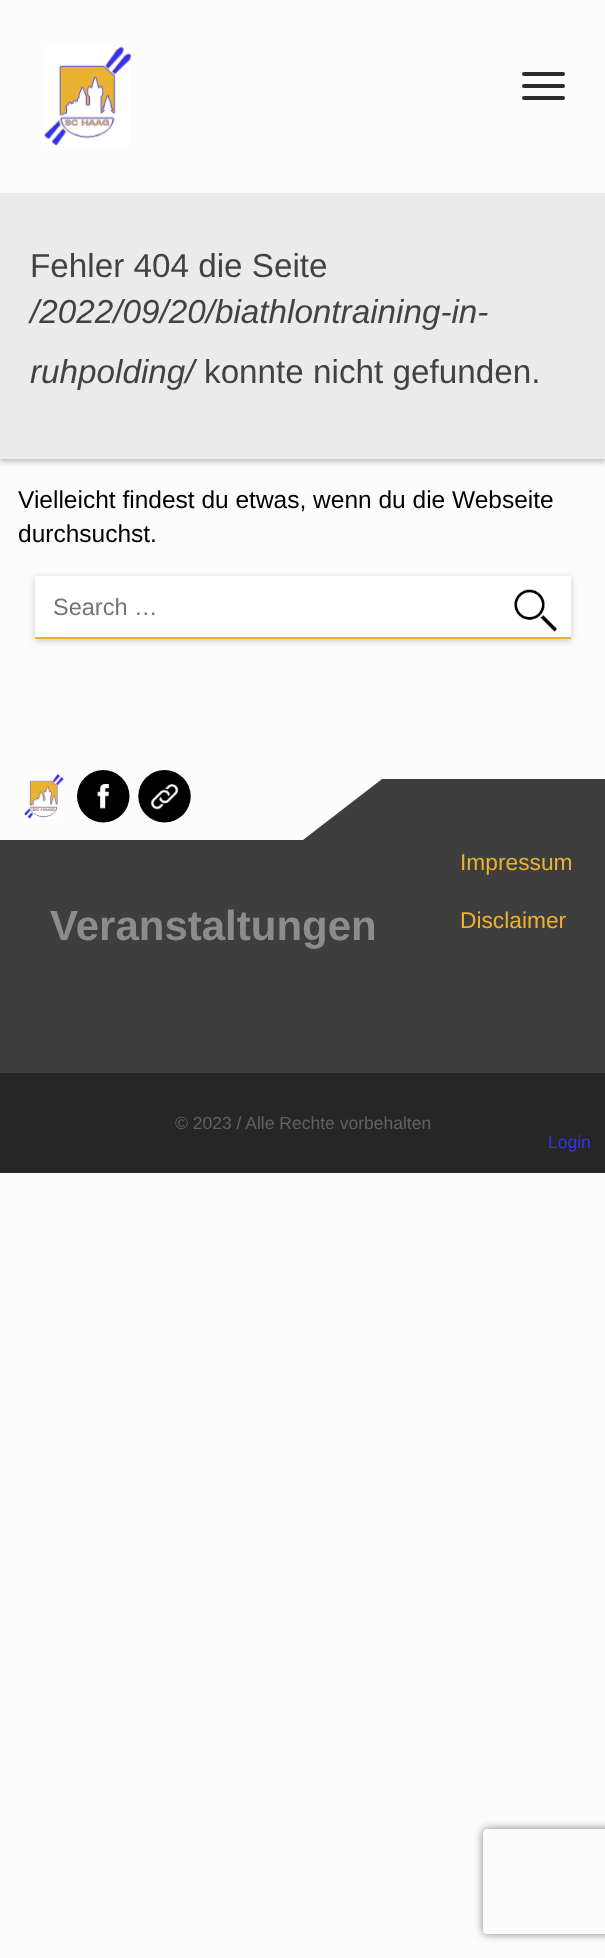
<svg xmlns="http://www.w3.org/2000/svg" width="605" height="1958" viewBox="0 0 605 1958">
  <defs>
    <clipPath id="clip1"><path d="M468 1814H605V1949H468ZM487 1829H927C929 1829 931 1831 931 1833V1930C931 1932 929 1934 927 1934H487C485 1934 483 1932 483 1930V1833C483 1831 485 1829 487 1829Z" clip-rule="evenodd"/></clipPath>
  </defs>
  <rect width="100%" height="100%" fill="#fcfcfc"/>
  <image x="44" y="46" width="87" height="100" href="img/1.png"/>
  <rect x="522" y="72" width="43" height="4" rx="2" fill="#2a2a2a"/>
  <rect x="522" y="84" width="43" height="4" rx="2" fill="#2a2a2a"/>
  <rect x="522" y="96" width="43" height="4" rx="2" fill="#2a2a2a"/>
  <path d="M0 196h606v266H0z" fill="#3f3f3f4d" filter="blur(2.5px)"/>
  <path d="M0 193h605v266H0z" fill="#ebebeb"/>
  <path d="M35 578h536v63H35z" fill="#00000033" filter="blur(3.5px)"/>
  <path d="M35 576h536v61H35z" fill="#fff"/>
  <path d="M35 637h536v2H35z" fill="#e9b231"/>
  <image x="514" y="589" width="43" height="43" href="img/2.png"/>
  <path d="M0 779h605v294H0z" fill="#3e3e3e"/>
  <path d="M0 779h303v61H0z" fill="#fcfcfc"/>
  <image x="24" y="774" width="40" height="45" href="img/3.png"/>
  <image x="76" y="770" width="54" height="53" href="img/4.png"/>
  <image x="138" y="770" width="53" height="53" href="img/5.png"/>
  <path d="M303 779H382L303 840Z" fill="#fcfcfc"/>
  <path d="M0 1073h605v100H0z" fill="#262626"/>
  <g clip-path="url(#clip1)">
    <rect x="483" y="1829" width="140" height="105" rx="4" fill="#808080" filter="blur(4.5px)"/>
  </g>
  <text x="30" y="277" font-family="Liberation Sans" font-size="33.25" fill="#424242">Fehler 404 die Seite</text>
  <g font-family="Liberation Sans" font-size="33.25" font-style="italic" fill="#424242">
    <text x="30" y="323">/2022/09/20/biathlontraining-in-</text>
    <text x="30" y="383">ruhpolding/</text>
  </g>
  <text x="204" y="383" font-family="Liberation Sans" font-size="33.25" fill="#424242">konnte nicht gefunden.</text>
  <g font-family="Liberation Sans" font-size="24.5" fill="#000">
    <text x="18" y="508">Vielleicht findest du etwas, wenn du die Webseite</text>
    <text x="18" y="542">durchsuchst.</text>
  </g>
  <text x="53" y="615" font-family="Liberation Sans" font-size="23.5" fill="#757575">Search …</text>
  <text x="50" y="940" font-family="Liberation Sans" font-size="42" font-weight="bold" fill="#8c8c8c">Veranstaltungen</text>
  <g font-family="Liberation Sans" font-size="22.75" fill="#e9b231">
    <text x="460" y="870">Impressum</text>
    <text x="460" y="928">Disclaimer</text>
  </g>
  <text x="175" y="1129" font-family="Liberation Sans" font-size="17.5" fill="#616161">© 2023 / Alle Rechte vorbehalten</text>
  <text x="548" y="1148" font-family="Liberation Sans" font-size="17.5" fill="#3134ed">Login</text>
</svg>
